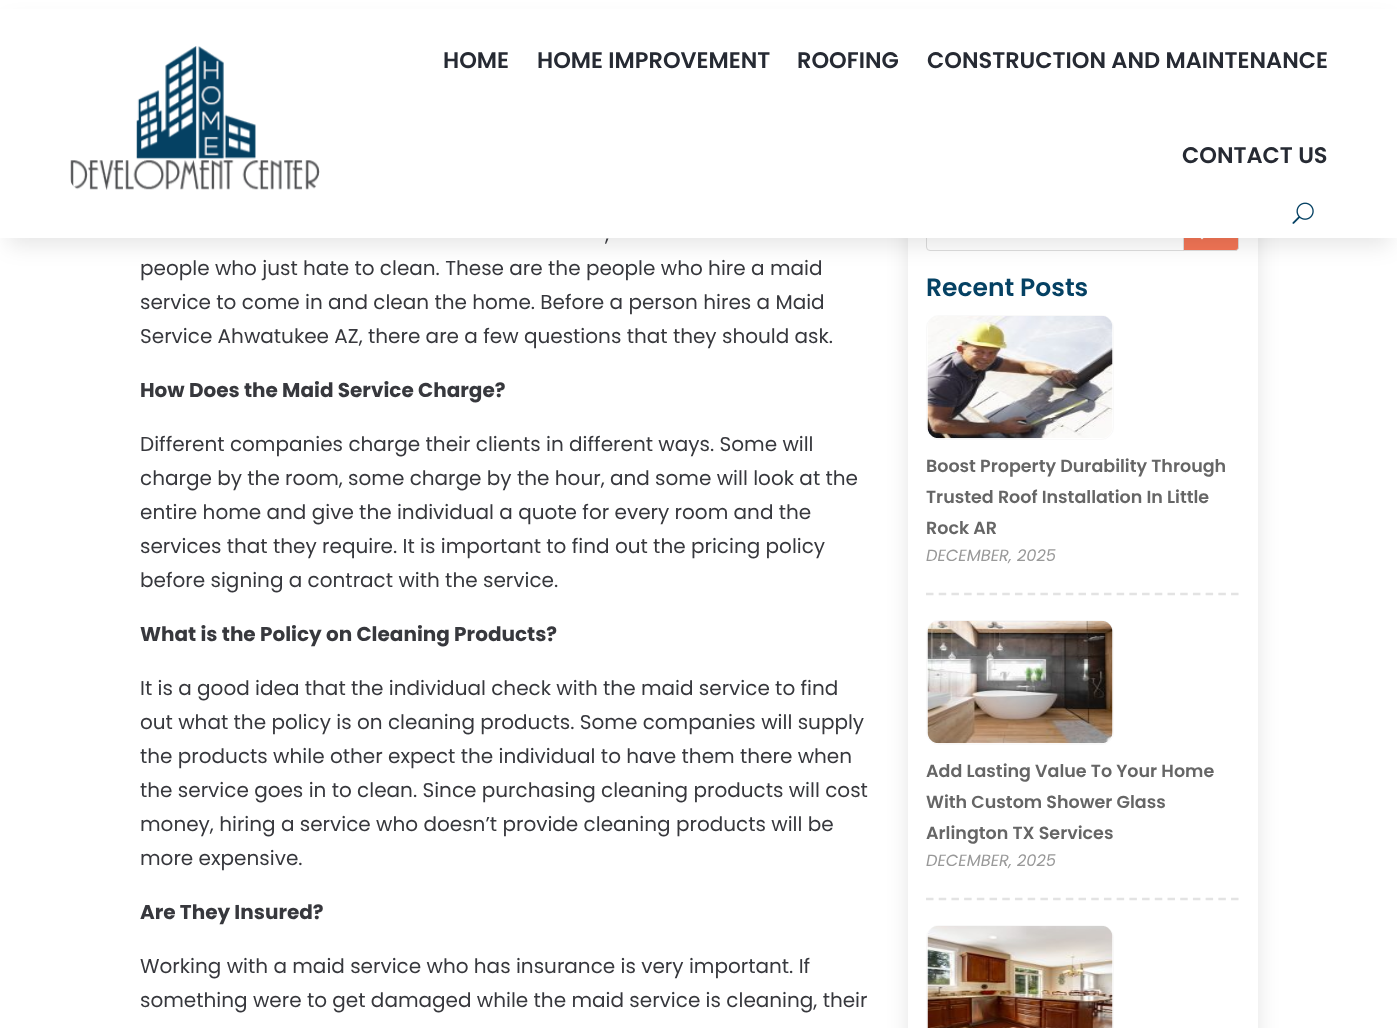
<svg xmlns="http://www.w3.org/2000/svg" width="1397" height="1028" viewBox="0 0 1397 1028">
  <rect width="100%" height="100%" fill="#fff"/>
  <rect x="908" y="185" width="350" height="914" rx="38" fill="#0000001a" filter="blur(11px)"/>
  <path d="M908 238h350v790H908z" fill="#fff"/>
  <rect x="926.5" y="201.5" width="312" height="49" rx="3.5" fill="none" stroke="#ddd"/>
  <path d="M1183.5 201.5H1235C1237 201.5 1238.5 203 1238.5 205V247C1238.5 249 1237 250.5 1235 250.5H1183.5Z" fill="#f37556" stroke="#ddd"/>
  <image x="1200" y="238" width="4" height="2" href="img/3.png"/>
  <path d="M8 23h1382v222H8z" fill="#0000001a" filter="blur(11px)"/>
  <path d="M0 9h1397v229H0z" fill="#fff"/>
  <image x="70" y="46" width="250" height="144" href="img/1.png"/>
  <image x="1292" y="202" width="22" height="22" href="img/2.png"/>
  <path d="M926 594H1239" fill="none" stroke="#e3e3e3" stroke-width="2.5" stroke-dasharray="7.5 5.21"/>
  <rect x="926.5" y="315.5" width="187" height="124" rx="12.5" fill="none" stroke="#f9f9f9"/>
  <image x="927" y="316" width="186" height="123" href="img/4.png"/>
  <path d="M926 899H1239" fill="none" stroke="#e3e3e3" stroke-width="2.5" stroke-dasharray="7.5 5.21"/>
  <rect x="926.5" y="620.5" width="187" height="124" rx="12.5" fill="none" stroke="#f9f9f9"/>
  <image x="927" y="620" width="186" height="124" href="img/5.png"/>
  <rect x="926.5" y="925.5" width="187" height="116" rx="12.5" fill="none" stroke="#f9f9f9"/>
  <image x="927" y="926" width="186" height="102" href="img/6.png"/>
  <g font-family="Poppins" font-size="22.5" font-weight="600" fill="#262a33">
    <text x="443" y="68">HOME</text>
    <text x="537" y="68">HOME IMPROVEMENT</text>
    <text x="797" y="68">ROOFING</text>
    <text x="927" y="68">CONSTRUCTION AND MAINTENANCE</text>
    <text x="1182" y="163">CONTACT US</text>
  </g>
  <g font-family="Poppins" font-size="20" fill="#37383d">
    <text x="605" y="241">,</text>
    <text x="140" y="275">people who just hate to clean. These are the people who hire a maid</text>
    <text x="140" y="309">service to come in and clean the home. Before a person hires a Maid</text>
    <text x="140" y="343">Service Ahwatukee AZ, there are a few questions that they should ask.</text>
  </g>
  <text x="140" y="397" font-family="Poppins" font-size="20" font-weight="bold" fill="#37383d">How Does the Maid Service Charge?</text>
  <g font-family="Poppins" font-size="20" fill="#37383d">
    <text x="140" y="451">Different companies charge their clients in different ways. Some will</text>
    <text x="140" y="485">charge by the room, some charge by the hour, and some will look at the</text>
    <text x="140" y="519">entire home and give the individual a quote for every room and the</text>
    <text x="140" y="553">services that they require. It is important to find out the pricing policy</text>
    <text x="140" y="587">before signing a contract with the service.</text>
  </g>
  <text x="140" y="641" font-family="Poppins" font-size="20" font-weight="bold" fill="#37383d">What is the Policy on Cleaning Products?</text>
  <g font-family="Poppins" font-size="20" fill="#37383d">
    <text x="140" y="695">It is a good idea that the individual check with the maid service to find</text>
    <text x="140" y="729">out what the policy is on cleaning products. Some companies will supply</text>
    <text x="140" y="763">the products while other expect the individual to have them there when</text>
    <text x="140" y="797">the service goes in to clean. Since purchasing cleaning products will cost</text>
    <text x="140" y="831">money, hiring a service who doesn’t provide cleaning products will be</text>
    <text x="140" y="865">more expensive.</text>
  </g>
  <text x="140" y="919" font-family="Poppins" font-size="20" font-weight="bold" fill="#37383d">Are They Insured?</text>
  <g font-family="Poppins" font-size="20" fill="#37383d">
    <text x="140" y="973">Working with a maid service who has insurance is very important. If</text>
    <text x="140" y="1007">something were to get damaged while the maid service is cleaning, their</text>
  </g>
  <text x="926" y="296" font-family="Poppins" font-size="25" font-weight="600" fill="#054163">Recent Posts</text>
  <g font-family="Poppins" font-size="17.5" font-weight="600" fill="#666">
    <text x="926" y="472">Boost Property Durability Through</text>
    <text x="926" y="503">Trusted Roof Installation In Little</text>
    <text x="926" y="534">Rock AR</text>
  </g>
  <text x="926" y="561" font-family="Poppins" font-size="16.25" font-style="italic" fill="#999">DECEMBER, 2025</text>
  <g font-family="Poppins" font-size="17.5" font-weight="600" fill="#666">
    <text x="926" y="777">Add Lasting Value To Your Home</text>
    <text x="926" y="808">With Custom Shower Glass</text>
    <text x="926" y="839">Arlington TX Services</text>
  </g>
  <text x="926" y="866" font-family="Poppins" font-size="16.25" font-style="italic" fill="#999">DECEMBER, 2025</text>
</svg>
